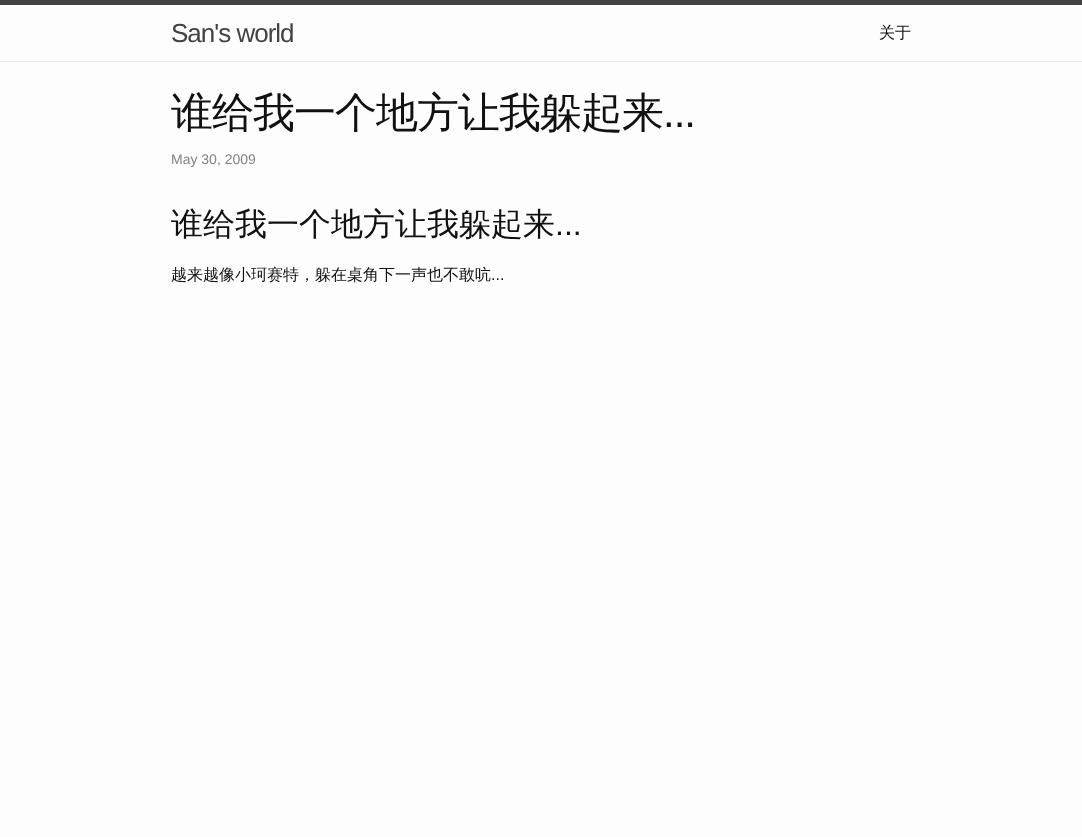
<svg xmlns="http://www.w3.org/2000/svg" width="1082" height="837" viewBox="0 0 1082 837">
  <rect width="100%" height="100%" fill="#fdfdfd"/>
  <path d="M0 0h1082v5H0z" fill="#424242"/>
  <path d="M0 61h1082v1H0z" fill="#e8e8e8"/>
  <text x="171" y="42" font-family="Liberation Sans" font-size="26" letter-spacing="-1" fill="#424242">San's world</text>
  <text x="879" y="38" font-family="WenQuanYi Zen Hei" font-size="16" font-weight="500" fill="#111">关于</text>
  <text x="171" y="127" font-family="WenQuanYi Zen Hei" font-size="42" font-weight="500" letter-spacing="-1" fill="#111">谁给我一个地方让我躲起来</text>
  <text x="663" y="127" font-family="Liberation Sans" font-size="42" letter-spacing="-1" fill="#111">...</text>
  <text x="171" y="164" font-family="Liberation Sans" font-size="14" fill="#828282">May 30, 2009</text>
  <text x="171" y="235" font-family="WenQuanYi Zen Hei" font-size="32" font-weight="500" fill="#111">谁给我一个地方让我躲起来</text>
  <text x="555" y="235" font-family="Liberation Sans" font-size="32" fill="#111">...</text>
  <text x="171" y="280" font-family="WenQuanYi Zen Hei" font-size="16" font-weight="500" fill="#111">越来越像小珂赛特，躲在桌角下一声也不敢吭</text>
  <text x="491" y="280" font-family="Liberation Sans" font-size="16" fill="#111">...</text>
</svg>
